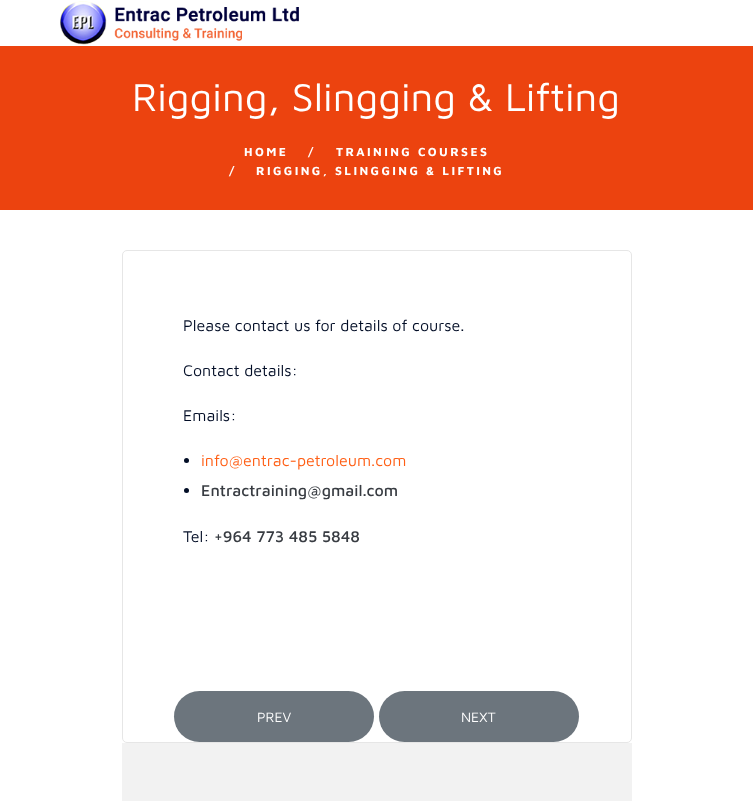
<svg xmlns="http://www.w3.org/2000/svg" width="753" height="801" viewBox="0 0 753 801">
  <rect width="100%" height="100%" fill="#fff"/>
  <image x="60" y="1" width="239" height="44" href="img/1.png"/>
  <path d="M0 46h753v164H0z" fill="#ec430f"/>
  <rect x="122.5" y="250.5" width="509" height="492" rx="4.5" fill="none" stroke="#e6e6e6"/>
  <circle cx="186.5" cy="460.5" r="2.5" fill="#020d26"/>
  <circle cx="186.5" cy="490.5" r="2.5" fill="#020d26"/>
  <rect x="174" y="691" width="200" height="51" rx="25.5" fill="#6c757d"/>
  <rect x="379" y="691" width="200" height="51" rx="25.5" fill="#6c757d"/>
  <path d="M122 743h510v58H122z" fill="#f2f2f2"/>
  <text x="132" y="111" font-family="Maven Pro" font-size="40" fill="#fff">Rigging, Slingging &amp; Lifting</text>
  <g font-family="Maven Pro" font-size="12" font-weight="bold" letter-spacing="2.4" fill="#fff">
    <text x="244" y="156">HOME</text>
    <text x="308" y="156">/</text>
    <text x="336" y="156">TRAINING COURSES</text>
    <text x="229" y="175">/</text>
    <text x="256" y="175">RIGGING, SLINGGING &amp; LIFTING</text>
  </g>
  <g font-family="Maven Pro" font-size="16" fill="#020d26">
    <text x="183" y="331">Please contact us for details of course.</text>
    <text x="183" y="376">Contact details:</text>
    <text x="183" y="421">Emails:</text>
  </g>
  <text x="201" y="466" font-family="Maven Pro" font-size="16" fill="#ff5e14">info@entrac-petroleum.com</text>
  <text x="201" y="496" font-family="Maven Pro" font-size="16" font-weight="500" fill="#383c42">Entractraining@gmail.com</text>
  <text x="183" y="542" font-family="Maven Pro" font-size="16" fill="#020d26">Tel:</text>
  <text x="214" y="542" font-family="Maven Pro" font-size="16" font-weight="500" fill="#383c42">+964 773 485 5848</text>
  <g font-family="Maven Pro" font-size="14" fill="#fff">
    <text x="257" y="722">PREV</text>
    <text x="461" y="722">NEXT</text>
  </g>
</svg>
